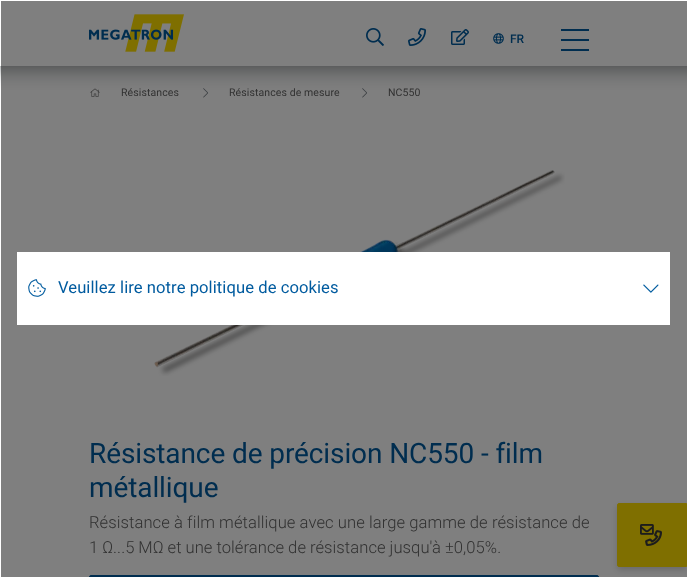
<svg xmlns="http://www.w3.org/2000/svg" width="687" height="577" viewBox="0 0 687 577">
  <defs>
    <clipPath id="clip1"><path d="M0 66h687v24H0z"/></clipPath>
  </defs>
  <rect width="100%" height="100%" fill="#fff"/>
  <image x="90" y="88" width="10" height="9" href="img/6.png"/>
  <image x="203" y="88" width="5" height="10" href="img/7.png"/>
  <image x="362" y="88" width="5" height="10" href="img/7.png"/>
  <g clip-path="url(#clip1)">
    <path d="M-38 -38h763v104H-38z" fill="#2d3439ab" filter="blur(12.5px)"/>
  </g>
  <image x="89" y="14" width="95" height="38" href="img/1.png"/>
  <image x="366" y="28" width="18" height="18" href="img/2.png"/>
  <image x="408" y="28" width="18" height="18" href="img/3.png"/>
  <image x="451" y="29" width="18" height="16" href="img/4.png"/>
  <image x="493" y="33" width="11" height="11" href="img/5.png"/>
  <path d="M561 39h28v2H561z" fill="#005b9f"/>
  <path d="M561 29h28v2H561z" fill="#005b9f"/>
  <path d="M561 49h28v2H561z" fill="#005b9f"/>
  <image x="154" y="170" width="411" height="206" href="img/8.png"/>
  <rect x="89.5" y="575.5" width="509" height="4" rx="1.5" fill="#005b9f" stroke="#005b9f"/>
  <rect x="617" y="506" width="70" height="64" rx="2" fill="#00000029" filter="blur(3px)"/>
  <path d="M619 503.5H686.5V566.5H619C618 566.5 617.5 566 617.5 565V505C617.5 504 618 503.5 619 503.5Z" fill="#ffde00" stroke="#ffde00"/>
  <image x="640" y="524" width="22" height="22" href="img/11.png"/>
  <text x="510" y="43" font-family="Roboto" font-size="12" font-weight="500" fill="#005b9f">FR</text>
  <g font-family="Roboto" font-size="10.5" letter-spacing="0.1" fill="#646464">
    <text x="121" y="96">Résistances</text>
    <text x="229" y="96">Résistances de mesure</text>
    <text x="388" y="96">NC550</text>
  </g>
  <g font-family="Roboto" font-size="28" letter-spacing="-0.1" fill="#005b9f">
    <text x="89" y="463">Résistance de précision NC550 - film</text>
    <text x="89" y="497">métallique</text>
  </g>
  <g font-family="Roboto" font-size="16.6" font-weight="300" letter-spacing="0.07" fill="#646464">
    <text x="89" y="528">Résistance à film métallique avec une large gamme de résistance de</text>
    <text x="89" y="553" word-spacing="-0.25">1 Ω...5 MΩ et une tolérance de résistance jusqu'à ±0,05%.</text>
  </g>
  <path d="M1 1h686v576H1z" fill="#00000080"/>
  <path d="M17 252h653v73H17z" fill="#fff"/>
  <image x="28" y="279" width="18" height="18" href="img/9.png"/>
  <text x="58" y="293" font-family="Roboto" font-size="16.6" letter-spacing="0.07" fill="#005b9f">Veuillez lire notre politique de cookies</text>
  <image x="643" y="284" width="16" height="9" href="img/10.png"/>
</svg>
